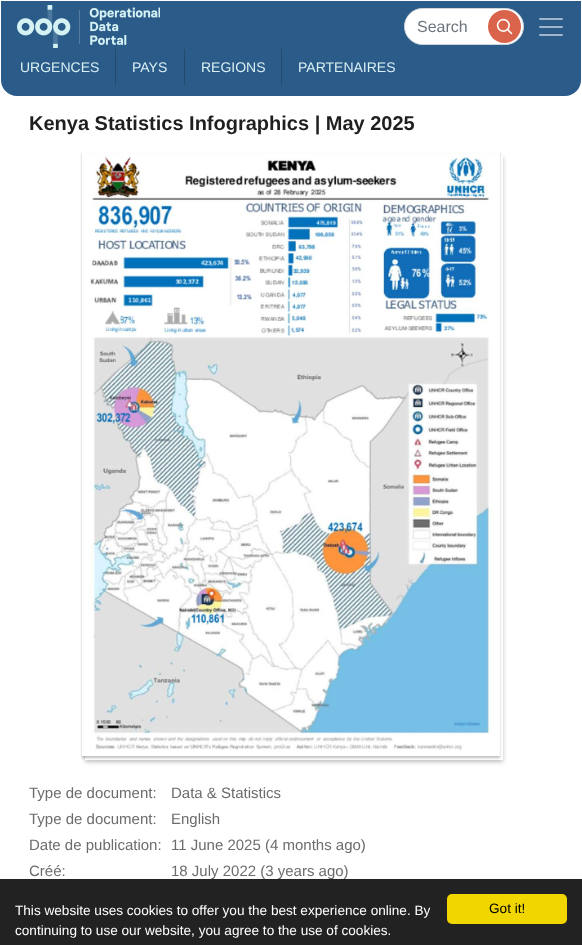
<svg xmlns="http://www.w3.org/2000/svg" width="582" height="945" viewBox="0 0 582 945">
  <defs>
    <clipPath id="clip1"><path d="M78 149H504V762H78ZM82 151H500V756H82Z" clip-rule="evenodd"/></clipPath>
    <clipPath id="clip2"><path d="M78 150H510V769H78ZM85 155H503V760H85Z" clip-rule="evenodd"/></clipPath>
  </defs>
  <rect width="100%" height="100%" fill="#fff"/>
  <path d="M2.5 2.5H579.5V80C579.5 88 573 94.5 565 94.5H17C9 94.5 2.5 88 2.5 80Z" fill="#2a5b89" stroke="#2a5b89" stroke-width="3"/>
  <image x="17" y="5" width="143" height="43" href="img/1.png"/>
  <rect x="404.5" y="8.5" width="119" height="36" rx="18" fill="#fff" stroke="#ced4da"/>
  <circle cx="504.5" cy="26.5" r="16.5" fill="#da634b"/>
  <image x="496" y="18" width="17" height="17" href="img/2.png"/>
  <image x="539" y="18" width="24" height="18" href="img/3.png"/>
  <path d="M115 49h1v36H115z" fill="#22496e"/>
  <path d="M184 49h1v36H184z" fill="#22496e"/>
  <path d="M281 49h1v36H281z" fill="#22496e"/>
  <g clip-path="url(#clip1)">
    <path d="M82 153h418v605H82z" fill="#00000040" filter="blur(1px)"/>
  </g>
  <g clip-path="url(#clip2)">
    <path d="M85 157h418v605H85z" fill="#00000040" filter="blur(2px)"/>
  </g>
  <image x="82" y="154" width="418" height="602" href="img/4.png"/>
  <text x="417" y="32" font-family="Liberation Sans" font-size="16" fill="#6c757d">Search</text>
  <g font-family="Liberation Sans" font-size="14" fill="#daf0f3">
    <text x="20" y="72">URGENCES</text>
    <text x="132" y="72">PAYS</text>
    <text x="201" y="72">REGIONS</text>
    <text x="298" y="72">PARTENAIRES</text>
  </g>
  <text x="29" y="130" font-family="Liberation Sans" font-size="20" font-weight="bold" fill="#1f1f1f">Kenya Statistics Infographics | May 2025</text>
  <g font-family="Liberation Sans" font-size="15" fill="#6c6c6c">
    <text x="29" y="798">Type de document:</text>
    <text x="171" y="798">Data &amp; Statistics</text>
    <text x="29" y="824">Type de document:</text>
    <text x="171" y="824">English</text>
    <text x="29" y="850">Date de publication:</text>
    <text x="171" y="850">11 June 2025 (4 months ago)</text>
    <text x="29" y="876">Créé:</text>
    <text x="171" y="876">18 July 2022 (3 years ago)</text>
  </g>
  <path d="M0 879h582v66H0z" fill="#222"/>
  <g font-family="Liberation Sans" font-size="13.6" fill="#fff">
    <text x="15" y="915">This website uses cookies to offer you the best experience online. By</text>
    <text x="15" y="935">continuing to use our website, you agree to the use of cookies.</text>
  </g>
  <rect x="447" y="894" width="120" height="30" rx="5" fill="#f1d600"/>
  <text x="489" y="913" font-family="Liberation Sans" font-size="13.6" fill="#000">Got it!</text>
</svg>
